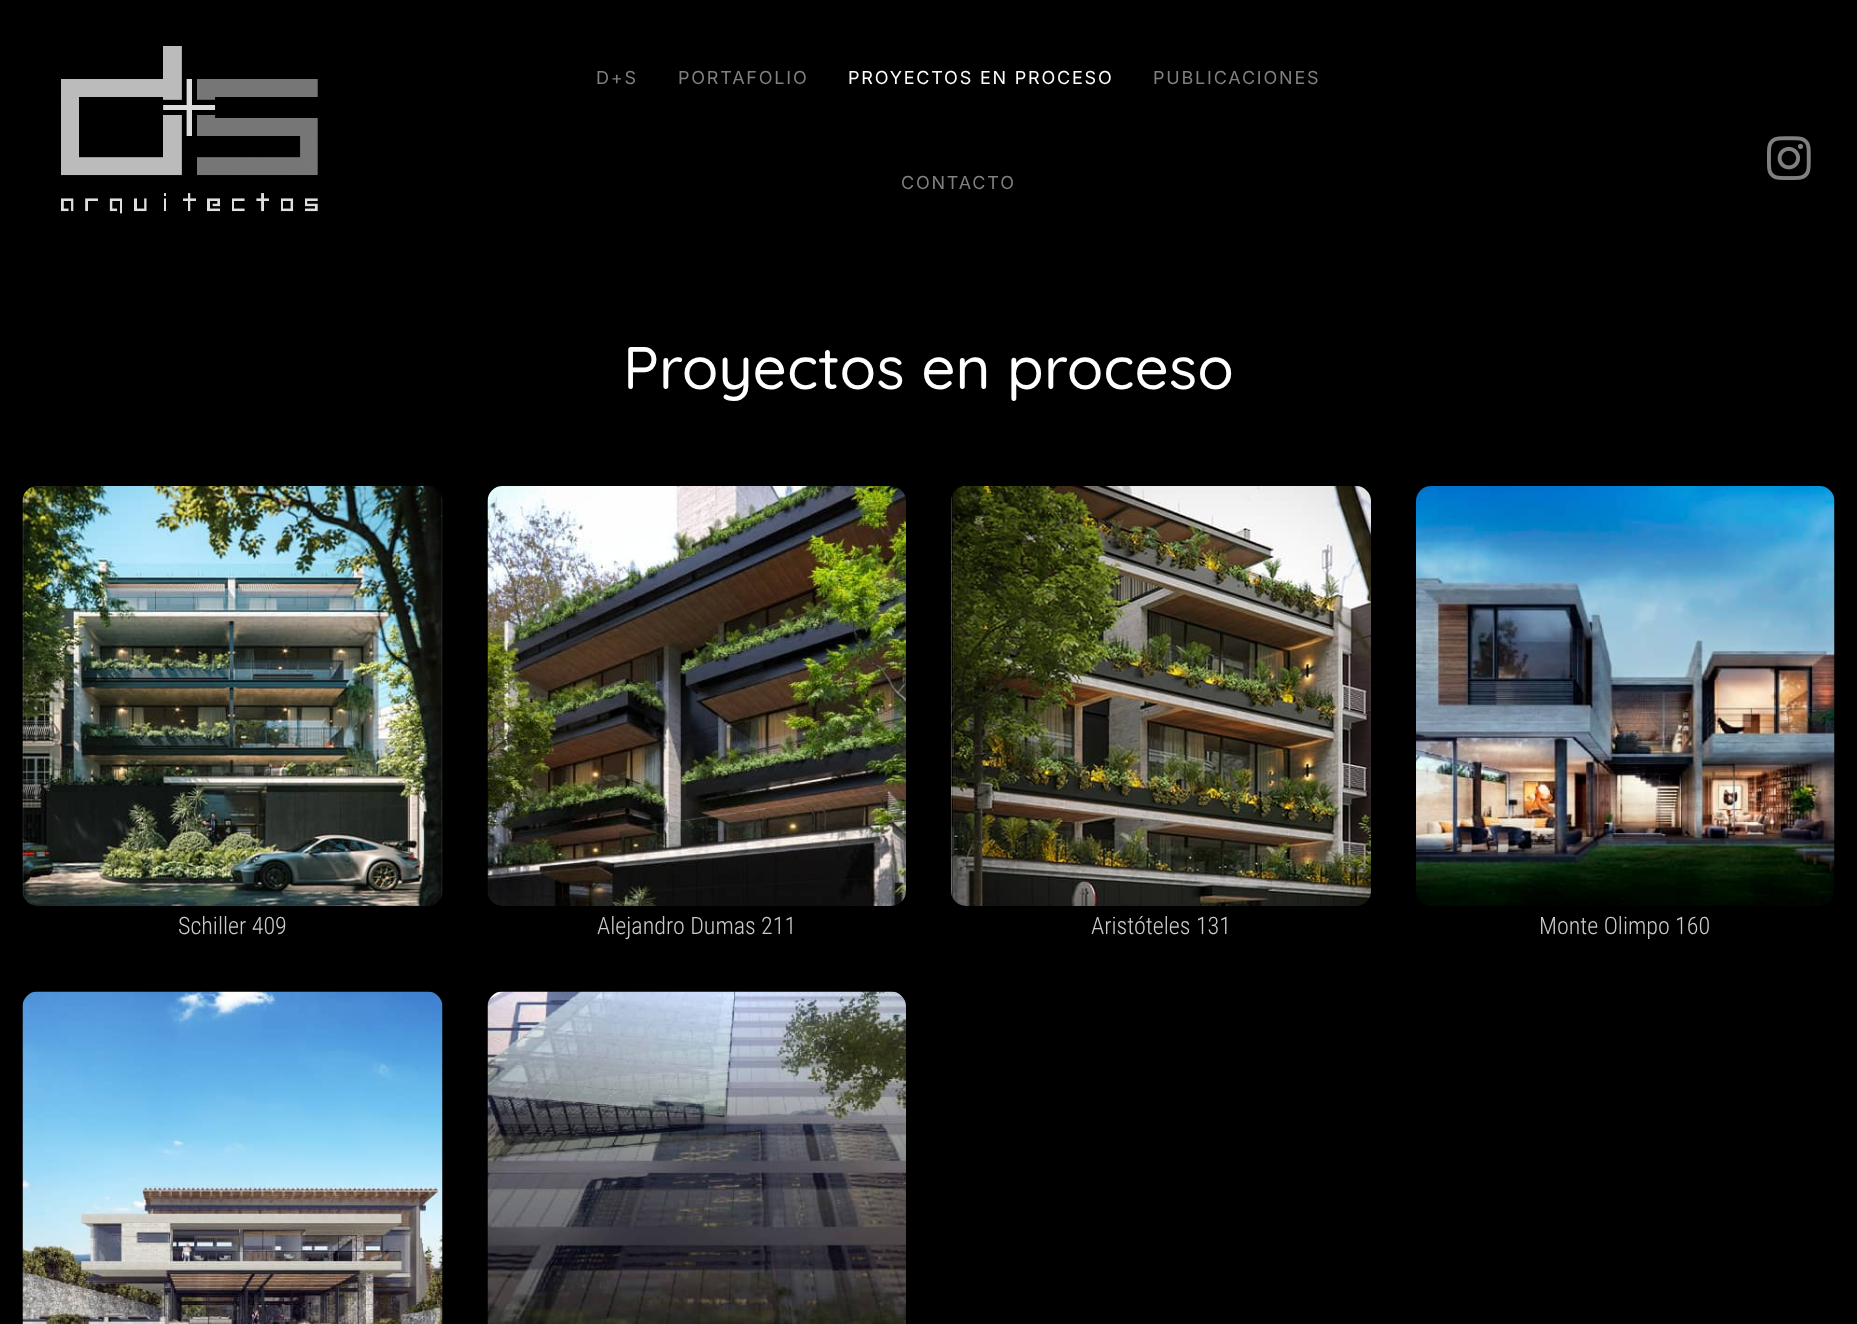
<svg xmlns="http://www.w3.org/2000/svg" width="1857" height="1324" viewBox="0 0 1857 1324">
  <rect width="100%" height="100%" fill="#000"/>
  <image x="61" y="46" width="257" height="168" href="img/1.png"/>
  <image x="1767" y="136" width="44" height="44" href="img/2.png"/>
  <image x="22" y="486" width="421" height="420" href="img/3.png"/>
  <image x="487" y="486" width="419" height="420" href="img/4.png"/>
  <image x="951" y="486" width="420" height="420" href="img/5.png"/>
  <image x="1416" y="486" width="419" height="420" href="img/6.png"/>
  <image x="22" y="991" width="421" height="333" href="img/7.png"/>
  <image x="487" y="991" width="419" height="333" href="img/8.png"/>
  <g font-family="Inter" font-size="18" letter-spacing="1.8" fill="#808080">
    <text x="596" y="84">D+S</text>
    <text x="678" y="84">PORTAFOLIO</text>
  </g>
  <text x="848" y="84" font-family="Inter" font-size="18" letter-spacing="1.8" fill="#fff">PROYECTOS EN PROCESO</text>
  <g font-family="Inter" font-size="18" letter-spacing="1.8" fill="#808080">
    <text x="1153" y="84">PUBLICACIONES</text>
    <text x="901" y="189">CONTACTO</text>
  </g>
  <text x="623" y="389" font-family="Quicksand" font-size="60" font-weight="500" fill="#fff">Proyectos en proceso</text>
  <g font-family="Roboto Condensed" font-size="24" font-weight="300" fill="#ccc">
    <text x="178" y="934">Schiller 409</text>
    <text x="597" y="934">Alejandro Dumas 211</text>
    <text x="1091" y="934">Aristóteles 131</text>
    <text x="1539" y="934">Monte Olimpo 160</text>
  </g>
</svg>
